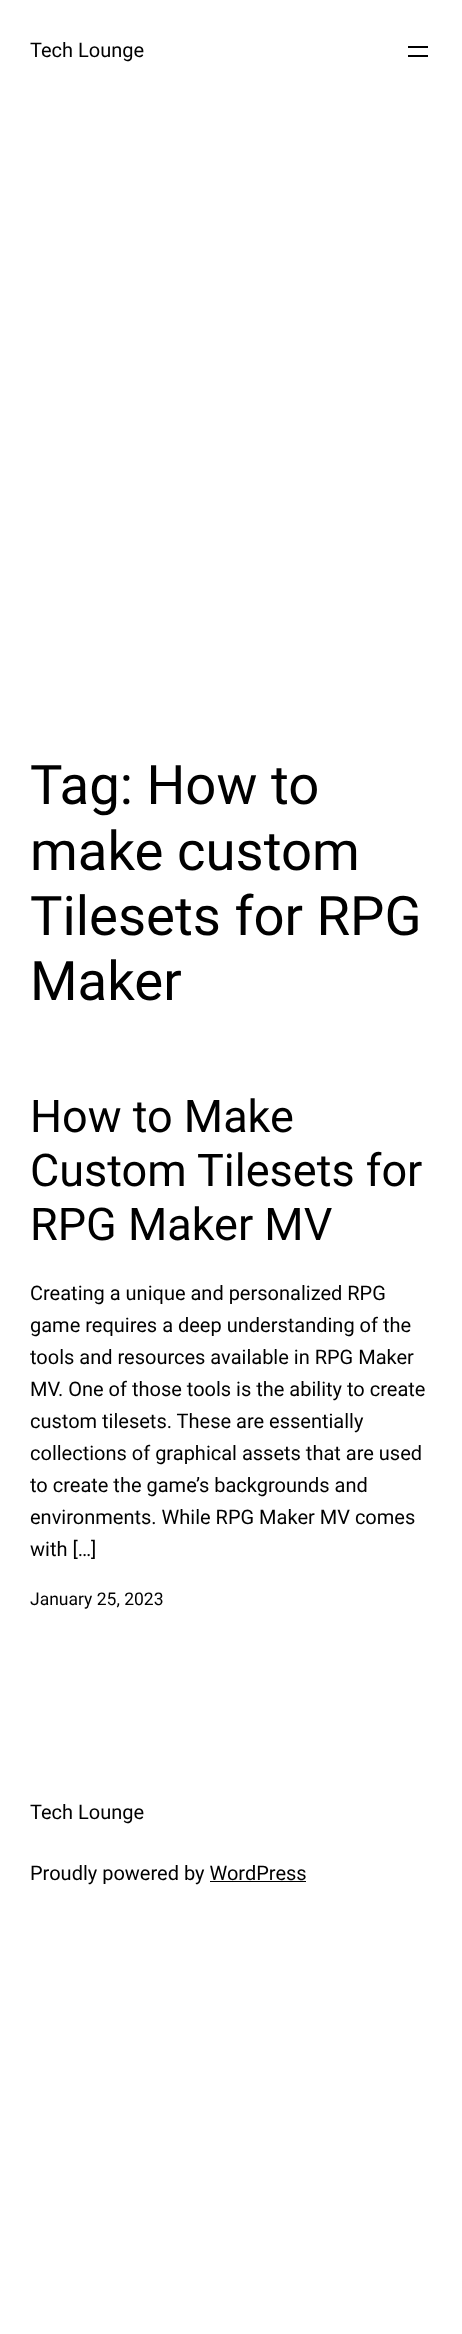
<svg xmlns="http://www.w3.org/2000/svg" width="462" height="2334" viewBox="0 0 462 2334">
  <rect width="100%" height="100%" fill="#fff"/>
  <path d="M408 46h20v2H408z" fill="#000"/>
  <path d="M408 55h20v2H408z" fill="#000"/>
  <path d="M210 1881h96v1H210z" fill="#000"/>
  <text x="30" y="57" font-family="Roboto" font-size="20" fill="#000">Tech Lounge</text>
  <g font-family="Roboto" font-size="54.5" fill="#000">
    <text x="30" y="804">Tag: How to</text>
    <text x="30" y="870">make custom</text>
    <text x="30" y="935">Tilesets for RPG</text>
    <text x="30" y="1000">Maker</text>
  </g>
  <g font-family="Roboto" font-size="45" fill="#000">
    <text x="30" y="1132">How to Make</text>
    <text x="30" y="1186">Custom Tilesets for</text>
    <text x="30" y="1240">RPG Maker MV</text>
  </g>
  <g font-family="Roboto" font-size="20" fill="#000">
    <text x="30" y="1300">Creating a unique and personalized RPG</text>
    <text x="30" y="1332">game requires a deep understanding of the</text>
    <text x="30" y="1364">tools and resources available in RPG Maker</text>
    <text x="30" y="1396">MV. One of those tools is the ability to create</text>
    <text x="30" y="1428">custom tilesets. These are essentially</text>
    <text x="30" y="1460">collections of graphical assets that are used</text>
    <text x="30" y="1492">to create the game’s backgrounds and</text>
    <text x="30" y="1524">environments. While RPG Maker MV comes</text>
    <text x="30" y="1556">with […]</text>
  </g>
  <text x="30" y="1605" font-family="Roboto" font-size="17.5" fill="#000">January 25, 2023</text>
  <g font-family="Roboto" font-size="20" fill="#000">
    <text x="30" y="1819">Tech Lounge</text>
    <text x="30" y="1880">Proudly powered by WordPress</text>
  </g>
</svg>
